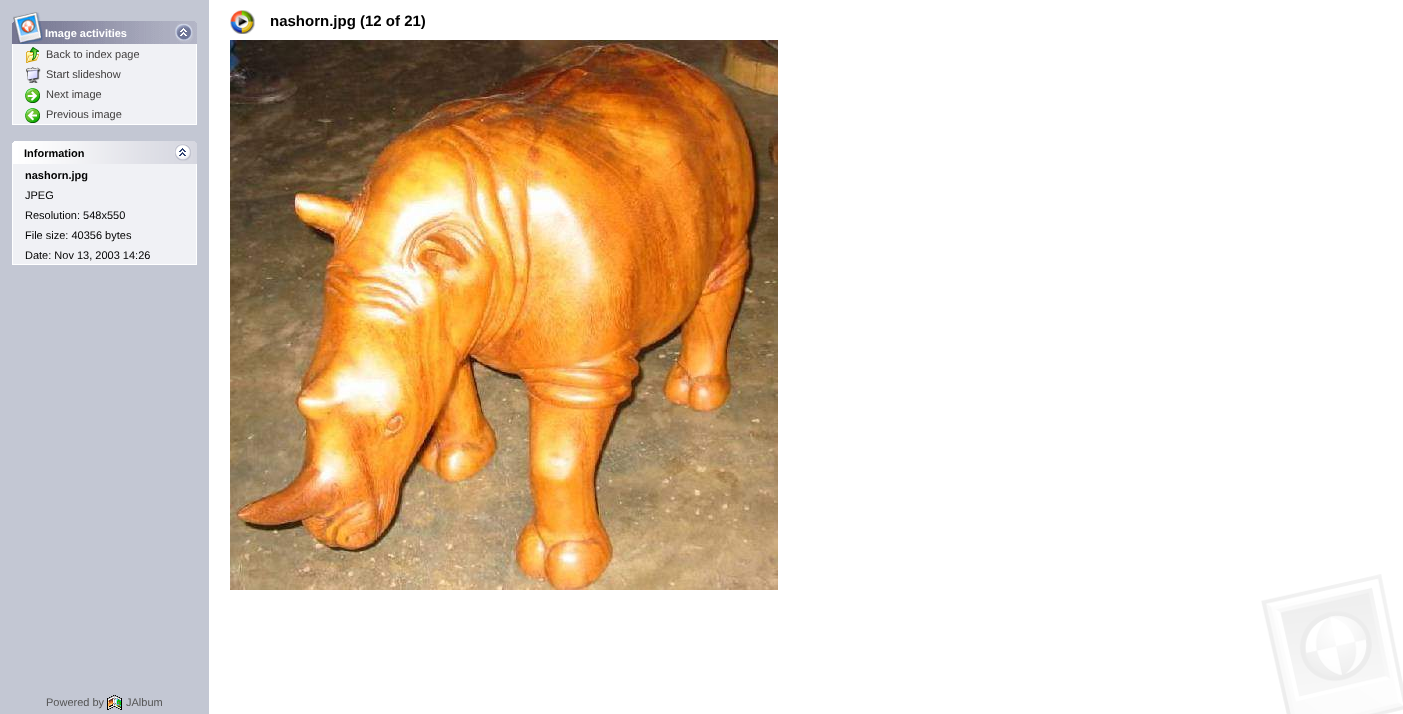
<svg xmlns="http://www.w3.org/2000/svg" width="1403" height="714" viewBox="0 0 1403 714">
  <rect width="100%" height="100%" fill="#fff"/>
  <image x="1261" y="574" width="142" height="140" href="img/1.png"/>
  <image x="230" y="10" width="25" height="24" href="img/2.png"/>
  <path d="M0 0h209v714H0z" fill="#c3c7d3"/>
  <image x="12" y="12" width="185" height="32" href="img/3.png"/>
  <path d="M12 44h1v80H12z" fill="#fff"/>
  <path d="M13 44h183v80H13z" fill="#f0f1f5"/>
  <image x="26" y="47" width="13" height="16" href="img/4.png"/>
  <path d="M196 44h1v80H196z" fill="#fff"/>
  <image x="26" y="67" width="15" height="16" href="img/5.png"/>
  <image x="25" y="88" width="15" height="15" href="img/6.png"/>
  <image x="25" y="108" width="15" height="15" href="img/7.png"/>
  <path d="M12 124h185v1H12z" fill="#fff"/>
  <image x="12" y="141" width="185" height="23" href="img/8.png"/>
  <path d="M12 164h1v100H12z" fill="#fff"/>
  <path d="M13 164h183v100H13z" fill="#f0f1f5"/>
  <path d="M196 164h1v100H196z" fill="#fff"/>
  <path d="M12 264h185v1H12z" fill="#fff"/>
  <image x="107" y="695" width="15" height="15" href="img/9.png"/>
  <image x="230" y="40" width="548" height="550" href="img/10.png"/>
  <text x="270" y="26" font-family="Liberation Sans" font-size="15" font-weight="bold" fill="#000">nashorn.jpg (12 of 21)</text>
  <text x="45" y="37" font-family="Liberation Sans" font-size="11" font-weight="bold" fill="#fff">Image activities</text>
  <g font-family="Liberation Sans" font-size="11" fill="#3f3d3d">
    <text x="46" y="58">Back to index page</text>
    <text x="46" y="78">Start slideshow</text>
    <text x="46" y="98">Next image</text>
    <text x="46" y="118">Previous image</text>
  </g>
  <g font-family="Liberation Sans" font-size="11" font-weight="bold" fill="#000">
    <text x="24" y="157">Information</text>
    <text x="25" y="179">nashorn.jpg</text>
  </g>
  <g font-family="Liberation Sans" font-size="11" fill="#000">
    <text x="25" y="199">JPEG</text>
    <text x="25" y="219">Resolution: 548x550</text>
    <text x="25" y="239">File size: 40356 bytes</text>
    <text x="25" y="259">Date: Nov 13, 2003 14:26</text>
  </g>
  <g font-family="Liberation Sans" font-size="11" fill="#555">
    <text x="46" y="706">Powered by</text>
    <text x="126" y="706">JAlbum</text>
  </g>
</svg>
